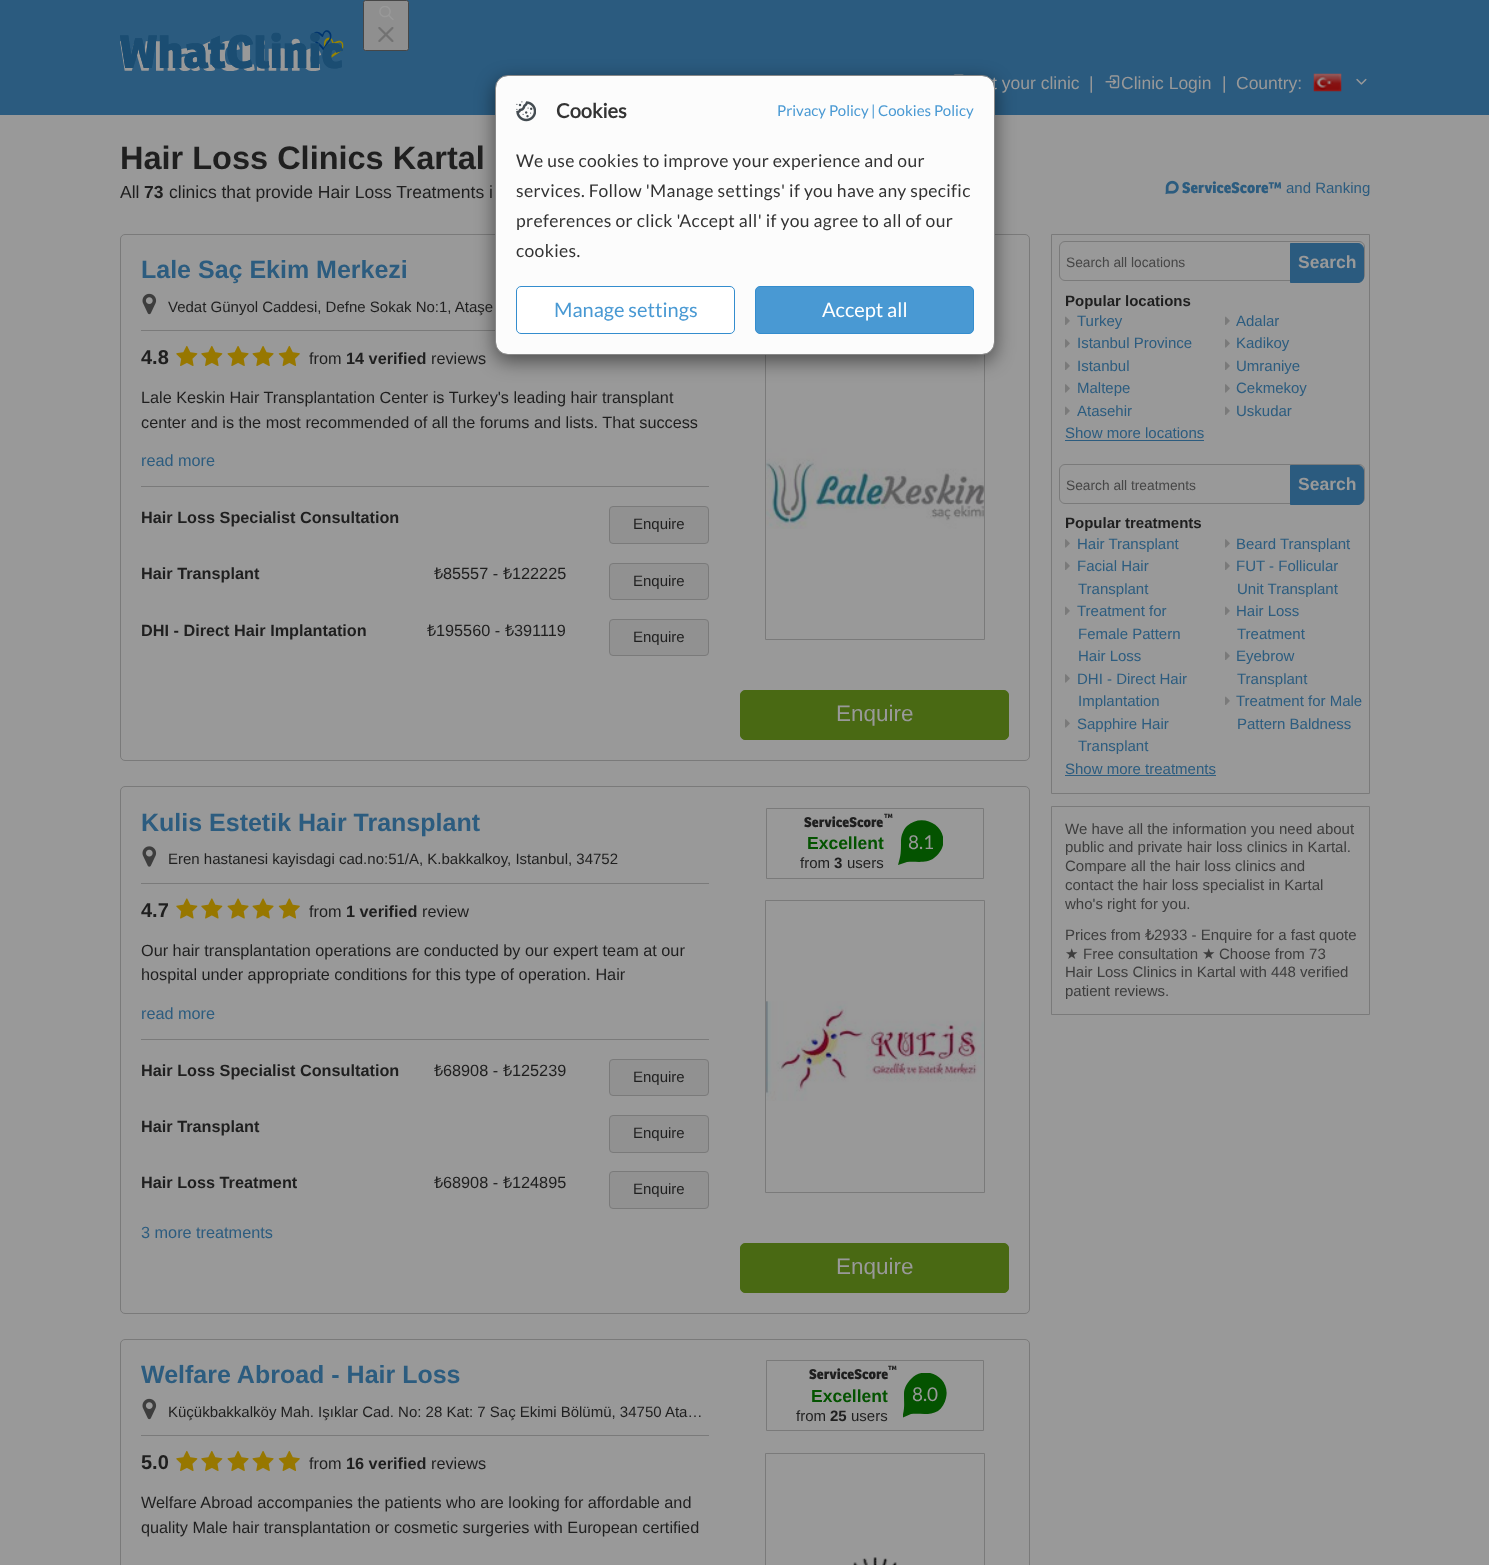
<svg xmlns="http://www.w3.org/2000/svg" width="1489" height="1565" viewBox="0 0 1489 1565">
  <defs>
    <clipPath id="clip1"><path d="M898 820h45v45H898z"/></clipPath>
    <clipPath id="clip2"><path d="M903 1373h45v45H903z"/></clipPath>
  </defs>
  <rect width="100%" height="100%" fill="#999"/>
  <path d="M0 0h1489v115H0z" fill="#2b5b7f"/>
  <image x="120" y="30" width="224" height="41" href="img/1.png"/>
  <image x="120" y="33" width="223" height="36" href="img/2.png"/>
  <rect x="363.5" y="0.5" width="45" height="50" rx="2" fill="#8f8f8f" stroke="#474747"/>
  <image x="379" y="6" width="15" height="14" href="img/3.png"/>
  <image x="378" y="27" width="16" height="15" href="img/4.png"/>
  <image x="953" y="74" width="11" height="1" href="img/5.png"/>
  <image x="1105" y="75" width="15" height="14" href="img/6.png"/>
  <image x="1313" y="73" width="29" height="19" href="img/7.png"/>
  <image x="1356" y="78" width="11" height="7" href="img/8.png"/>
  <rect x="120.5" y="234.5" width="909" height="526" rx="4.5" fill="none" stroke="#7a7a7a"/>
  <path d="M141 330h354v1H141z" fill="#7a7a7a"/>
  <path d="M765.5 348.5h219v291H765.5z" fill="none" stroke="#7a7a7a"/>
  <image x="766" y="353" width="218" height="176" href="img/14.png"/>
  <rect x="495" y="81" width="500" height="280" rx="13" fill="#00000080" filter="blur(9.5px)"/>
  <image x="142" y="293" width="15" height="22" href="img/10.png"/>
  <path d="M141 486h568v1H141z" fill="#7a7a7a"/>
  <image x="176" y="345" width="22" height="21" href="img/11.png"/>
  <image x="201" y="345" width="22" height="21" href="img/11.png"/>
  <image x="227" y="346" width="22" height="20" href="img/12.png"/>
  <image x="252" y="346" width="22" height="20" href="img/12.png"/>
  <image x="278" y="345" width="22" height="21" href="img/13.png"/>
  <rect x="609.5" y="506.5" width="99" height="37" rx="3.5" fill="#919191" stroke="#7a7a7a"/>
  <rect x="609.5" y="563.5" width="99" height="36" rx="3.5" fill="#919191" stroke="#7a7a7a"/>
  <rect x="609.5" y="619.5" width="99" height="36" rx="3.5" fill="#919191" stroke="#7a7a7a"/>
  <rect x="740.5" y="690.5" width="268" height="49" rx="4.5" fill="#496913" stroke="#496913"/>
  <rect x="120.5" y="786.5" width="909" height="527" rx="4.5" fill="none" stroke="#7a7a7a"/>
  <path d="M141 883h568v1H141z" fill="#7a7a7a"/>
  <image x="142" y="846" width="15" height="21" href="img/15.png"/>
  <path d="M766.5 808.5h217v70H766.5z" fill="none" stroke="#7a7a7a"/>
  <g clip-path="url(#clip1)">
    <path d="M901 841C901 836 903 830 907 826C922 812 947 825 943 845C942 850 938 855 934 858C926 864 916 861 907 862L898 865C901 855 901 852 901 841Z" fill="#045300"/>
  </g>
  <path d="M765.5 900.5h219v292H765.5z" fill="none" stroke="#7a7a7a"/>
  <image x="766" y="1001" width="218" height="100" href="img/16.png"/>
  <rect x="740.5" y="1243.5" width="268" height="49" rx="4.5" fill="#496913" stroke="#496913"/>
  <path d="M141 1039h568v1H141z" fill="#7a7a7a"/>
  <image x="176" y="898" width="22" height="21" href="img/17.png"/>
  <image x="201" y="898" width="22" height="21" href="img/17.png"/>
  <image x="227" y="898" width="22" height="21" href="img/18.png"/>
  <image x="252" y="898" width="22" height="21" href="img/18.png"/>
  <image x="278" y="898" width="22" height="21" href="img/19.png"/>
  <rect x="609.5" y="1059.5" width="99" height="36" rx="3.5" fill="#919191" stroke="#7a7a7a"/>
  <rect x="609.5" y="1115.5" width="99" height="37" rx="3.5" fill="#919191" stroke="#7a7a7a"/>
  <rect x="609.5" y="1171.5" width="99" height="37" rx="3.5" fill="#919191" stroke="#7a7a7a"/>
  <rect x="120.5" y="1339.5" width="909" height="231" rx="4.5" fill="none" stroke="#7a7a7a"/>
  <path d="M141 1435h568v1H141z" fill="#7a7a7a"/>
  <image x="142" y="1398" width="15" height="22" href="img/10.png"/>
  <path d="M766.5 1360.5h217v70H766.5z" fill="none" stroke="#7a7a7a"/>
  <g clip-path="url(#clip2)">
    <path d="M904 1394C904 1388 907 1383 911 1379C925 1364 951 1377 946 1398C945 1403 942 1408 938 1411C929 1416 920 1413 911 1414L902 1418C905 1408 904 1405 904 1394Z" fill="#045300"/>
  </g>
  <path d="M765.5 1453.5h219v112H765.5z" fill="none" stroke="#7a7a7a"/>
  <image x="853" y="1557" width="44" height="8" href="img/20.png"/>
  <image x="176" y="1450" width="22" height="21" href="img/11.png"/>
  <image x="201" y="1450" width="22" height="21" href="img/11.png"/>
  <image x="227" y="1451" width="22" height="20" href="img/12.png"/>
  <image x="252" y="1451" width="22" height="20" href="img/12.png"/>
  <image x="278" y="1450" width="22" height="21" href="img/13.png"/>
  <image x="1165" y="180" width="14" height="15" href="img/21.png"/>
  <path d="M1051.5 234.5h318v559H1051.5z" fill="none" stroke="#7a7a7a"/>
  <rect x="1059.5" y="241.5" width="305" height="39" rx="5.5" fill="none" stroke="#7a7a7a"/>
  <path d="M1290.5 243.5H1358C1361 243.5 1363.5 246 1363.5 249V277C1363.5 280 1361 282.5 1358 282.5H1290.5Z" fill="#2b5b7f" stroke="#2b5b7f"/>
  <image x="1065" y="316" width="5" height="9" href="img/22.png"/>
  <image x="1225" y="316" width="5" height="9" href="img/22.png"/>
  <image x="1065" y="339" width="5" height="9" href="img/23.png"/>
  <image x="1225" y="339" width="5" height="9" href="img/23.png"/>
  <image x="1065" y="361" width="5" height="9" href="img/22.png"/>
  <image x="1225" y="361" width="5" height="9" href="img/22.png"/>
  <image x="1065" y="384" width="5" height="9" href="img/23.png"/>
  <image x="1225" y="384" width="5" height="9" href="img/23.png"/>
  <image x="1065" y="406" width="5" height="9" href="img/22.png"/>
  <image x="1225" y="406" width="5" height="9" href="img/22.png"/>
  <path d="M1065 440h139v1H1065z" fill="#2c5c7f"/>
  <rect x="1059.5" y="464.5" width="305" height="39" rx="5.5" fill="none" stroke="#7a7a7a"/>
  <path d="M1290.5 465.5H1358C1361 465.5 1363.5 468 1363.5 471V499C1363.5 502 1361 504.5 1358 504.5H1290.5Z" fill="#2b5b7f" stroke="#2b5b7f"/>
  <image x="1065" y="539" width="5" height="9" href="img/23.png"/>
  <image x="1225" y="539" width="5" height="9" href="img/23.png"/>
  <image x="1065" y="561" width="5" height="9" href="img/22.png"/>
  <image x="1225" y="561" width="5" height="9" href="img/22.png"/>
  <image x="1065" y="606" width="5" height="9" href="img/22.png"/>
  <image x="1225" y="606" width="5" height="9" href="img/22.png"/>
  <image x="1065" y="674" width="5" height="9" href="img/23.png"/>
  <image x="1225" y="651" width="5" height="9" href="img/22.png"/>
  <image x="1225" y="696" width="5" height="9" href="img/22.png"/>
  <image x="1065" y="719" width="5" height="9" href="img/23.png"/>
  <path d="M1065 775h151v1H1065z" fill="#2c5c7f"/>
  <path d="M1051.5 806.5h318v208H1051.5z" fill="none" stroke="#7a7a7a"/>
  <g font-family="Liberation Sans" font-size="17.5" fill="#999">
    <text x="992" y="89">t your clinic</text>
    <text x="1089" y="89">|</text>
    <text x="1121" y="89">Clinic Login</text>
    <text x="1222" y="89">|</text>
    <text x="1236" y="89">Country:</text>
  </g>
  <rect x="496" y="76" width="498" height="278" rx="11" fill="#fcfcfc"/>
  <rect x="495.5" y="75.5" width="499" height="279" rx="12.5" fill="none" stroke="#888"/>
  <image x="516" y="101" width="20" height="21" href="img/9.png"/>
  <text x="556" y="118" font-family="Lato" font-size="20" font-weight="bold" fill="#333">Cookies</text>
  <g font-family="Lato" font-size="15" fill="#4999d3">
    <text x="777" y="116">Privacy Policy</text>
    <text x="871" y="116">|</text>
    <text x="878" y="116">Cookies Policy</text>
  </g>
  <g font-family="Lato" font-size="17.5" letter-spacing="0.35" fill="#333">
    <text x="516" y="167">We use cookies to improve your experience and our</text>
    <text x="516" y="197">services. Follow 'Manage settings' if you have any specific</text>
    <text x="516" y="227">preferences or click 'Accept all' if you agree to all of our</text>
    <text x="516" y="257">cookies.</text>
  </g>
  <rect x="516.5" y="286.5" width="218" height="47" rx="4.5" fill="#fff" stroke="#348dce"/>
  <text x="554" y="317" font-family="Lato" font-size="20" fill="#4999d3">Manage settings</text>
  <rect x="755.5" y="286.5" width="218" height="47" rx="4.5" fill="#4999d3" stroke="#348dce"/>
  <text x="822" y="317" font-family="Lato" font-size="20" fill="#fff">Accept all</text>
  <text x="120" y="169" font-family="Liberation Sans" font-size="32.5" font-weight="bold" fill="#1f1f1f">Hair Loss Clinics Kartal</text>
  <text x="120" y="198" font-family="Liberation Sans" font-size="17.5" fill="#1f1f1f">All</text>
  <text x="144" y="198" font-family="Liberation Sans" font-size="17.5" font-weight="bold" fill="#1f1f1f">73</text>
  <text x="169" y="198" font-family="Liberation Sans" font-size="17.5" fill="#1f1f1f">clinics that provide Hair Loss Treatments i</text>
  <text x="141" y="278" font-family="Liberation Sans" font-size="25" font-weight="bold" fill="#2c5c7f">Lale Saç Ekim Merkezi</text>
  <text x="168" y="312" font-family="Liberation Sans" font-size="15" fill="#1f1f1f">Vedat Günyol Caddesi, Defne Sokak No:1, Ataşe</text>
  <text x="141" y="364" font-family="Liberation Sans" font-size="20" font-weight="bold" fill="#1f1f1f">4.8</text>
  <text x="309" y="364" font-family="Liberation Sans" font-size="16.25" fill="#1f1f1f">from</text>
  <text x="346" y="364" font-family="Liberation Sans" font-size="16.25" font-weight="bold" fill="#1f1f1f">14 verified</text>
  <g font-family="Liberation Sans" font-size="16.25" fill="#1f1f1f">
    <text x="431" y="364">reviews</text>
    <text x="141" y="403">Lale Keskin Hair Transplantation Center is Turkey's leading hair transplant</text>
    <text x="141" y="428">center and is the most recommended of all the forums and lists. That success</text>
  </g>
  <text x="141" y="466" font-family="Liberation Sans" font-size="16.25" fill="#2c5c7f">read more</text>
  <text x="141" y="523" font-family="Liberation Sans" font-size="16.25" font-weight="bold" fill="#1f1f1f">Hair Loss Specialist Consultation</text>
  <text x="633" y="529" font-family="Liberation Sans" font-size="15" fill="#1f1f1f">Enquire</text>
  <text x="141" y="579" font-family="Liberation Sans" font-size="16.25" font-weight="bold" fill="#1f1f1f">Hair Transplant</text>
  <text x="434" y="579" font-family="Noto Sans" font-size="16.25" fill="#1f1f1f">₺</text>
  <text x="443" y="579" font-family="Liberation Sans" font-size="16.25" fill="#1f1f1f">85557 -</text>
  <text x="503" y="579" font-family="Noto Sans" font-size="16.25" fill="#1f1f1f">₺</text>
  <text x="512" y="579" font-family="Liberation Sans" font-size="16.25" fill="#1f1f1f">122225</text>
  <text x="633" y="586" font-family="Liberation Sans" font-size="15" fill="#1f1f1f">Enquire</text>
  <text x="141" y="636" font-family="Liberation Sans" font-size="16.25" font-weight="bold" fill="#1f1f1f">DHI - Direct Hair Implantation</text>
  <text x="427" y="636" font-family="Noto Sans" font-size="16.25" fill="#1f1f1f">₺</text>
  <text x="436" y="636" font-family="Liberation Sans" font-size="16.25" fill="#1f1f1f">195560 -</text>
  <text x="505" y="636" font-family="Noto Sans" font-size="16.25" fill="#1f1f1f">₺</text>
  <text x="514" y="636" font-family="Liberation Sans" font-size="16.25" fill="#1f1f1f">391119</text>
  <text x="633" y="642" font-family="Liberation Sans" font-size="15" fill="#1f1f1f">Enquire</text>
  <text x="836" y="721" font-family="Liberation Sans" font-size="22.5" fill="#999">Enquire</text>
  <text x="141" y="831" font-family="Liberation Sans" font-size="25" font-weight="bold" fill="#2c5c7f">Kulis Estetik Hair Transplant</text>
  <text x="168" y="864" font-family="Liberation Sans" font-size="15" fill="#1f1f1f">Eren hastanesi kayisdagi cad.no:51/A, K.bakkalkoy, Istanbul, 34752</text>
  <text x="884" y="821" font-family="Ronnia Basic" font-size="10" font-weight="800" fill="#1f1f1f">™</text>
  <text x="804" y="827" font-family="Ronnia Basic" font-size="13.75" font-weight="800" fill="#1f1f1f">ServiceScore</text>
  <text x="807" y="849" font-family="Liberation Sans" font-size="17.5" font-weight="bold" fill="#045300">Excellent</text>
  <text x="800" y="868" font-family="Liberation Sans" font-size="15" fill="#1f1f1f">from</text>
  <text x="834" y="868" font-family="Liberation Sans" font-size="15" font-weight="bold" fill="#1f1f1f">3</text>
  <text x="847" y="868" font-family="Liberation Sans" font-size="15" fill="#1f1f1f">users</text>
  <text x="908" y="849" font-family="Lato" font-size="19" fill="#999">8.1</text>
  <text x="836" y="1274" font-family="Liberation Sans" font-size="22.5" fill="#999">Enquire</text>
  <text x="141" y="917" font-family="Liberation Sans" font-size="20" font-weight="bold" fill="#1f1f1f">4.7</text>
  <text x="309" y="917" font-family="Liberation Sans" font-size="16.25" fill="#1f1f1f">from</text>
  <text x="346" y="917" font-family="Liberation Sans" font-size="16.25" font-weight="bold" fill="#1f1f1f">1 verified</text>
  <g font-family="Liberation Sans" font-size="16.25" fill="#1f1f1f">
    <text x="422" y="917">review</text>
    <text x="141" y="956">Our hair transplantation operations are conducted by our expert team at our</text>
    <text x="141" y="980">hospital under appropriate conditions for this type of operation. Hair</text>
  </g>
  <text x="141" y="1019" font-family="Liberation Sans" font-size="16.25" fill="#2c5c7f">read more</text>
  <text x="141" y="1076" font-family="Liberation Sans" font-size="16.25" font-weight="bold" fill="#1f1f1f">Hair Loss Specialist Consultation</text>
  <text x="434" y="1076" font-family="Noto Sans" font-size="16.25" fill="#1f1f1f">₺</text>
  <text x="443" y="1076" font-family="Liberation Sans" font-size="16.25" fill="#1f1f1f">68908 -</text>
  <text x="503" y="1076" font-family="Noto Sans" font-size="16.25" fill="#1f1f1f">₺</text>
  <text x="512" y="1076" font-family="Liberation Sans" font-size="16.25" fill="#1f1f1f">125239</text>
  <text x="633" y="1082" font-family="Liberation Sans" font-size="15" fill="#1f1f1f">Enquire</text>
  <text x="141" y="1132" font-family="Liberation Sans" font-size="16.25" font-weight="bold" fill="#1f1f1f">Hair Transplant</text>
  <text x="633" y="1138" font-family="Liberation Sans" font-size="15" fill="#1f1f1f">Enquire</text>
  <text x="141" y="1188" font-family="Liberation Sans" font-size="16.25" font-weight="bold" fill="#1f1f1f">Hair Loss Treatment</text>
  <text x="434" y="1188" font-family="Noto Sans" font-size="16.25" fill="#1f1f1f">₺</text>
  <text x="443" y="1188" font-family="Liberation Sans" font-size="16.25" fill="#1f1f1f">68908 -</text>
  <text x="503" y="1188" font-family="Noto Sans" font-size="16.25" fill="#1f1f1f">₺</text>
  <text x="512" y="1188" font-family="Liberation Sans" font-size="16.25" fill="#1f1f1f">124895</text>
  <text x="633" y="1194" font-family="Liberation Sans" font-size="15" fill="#1f1f1f">Enquire</text>
  <text x="141" y="1238" font-family="Liberation Sans" font-size="16.25" fill="#2c5c7f">3 more treatments</text>
  <text x="141" y="1383" font-family="Liberation Sans" font-size="25" font-weight="bold" fill="#2c5c7f">Welfare Abroad - Hair Loss</text>
  <text x="168" y="1417" font-family="Liberation Sans" font-size="15" fill="#1f1f1f">Küçükbakkalköy Mah. Işıklar Cad. No: 28 Kat: 7 Saç Ekimi Bölümü, 34750 Ata…</text>
  <text x="888" y="1373" font-family="Ronnia Basic" font-size="10" font-weight="800" fill="#1f1f1f">™</text>
  <text x="809" y="1379" font-family="Ronnia Basic" font-size="13.75" font-weight="800" fill="#1f1f1f">ServiceScore</text>
  <text x="811" y="1402" font-family="Liberation Sans" font-size="17.5" font-weight="bold" fill="#045300">Excellent</text>
  <text x="796" y="1421" font-family="Liberation Sans" font-size="15" fill="#1f1f1f">from</text>
  <text x="830" y="1421" font-family="Liberation Sans" font-size="15" font-weight="bold" fill="#1f1f1f">25</text>
  <text x="851" y="1421" font-family="Liberation Sans" font-size="15" fill="#1f1f1f">users</text>
  <text x="912" y="1401" font-family="Lato" font-size="19" fill="#999">8.0</text>
  <text x="141" y="1469" font-family="Liberation Sans" font-size="20" font-weight="bold" fill="#1f1f1f">5.0</text>
  <text x="309" y="1469" font-family="Liberation Sans" font-size="16.25" fill="#1f1f1f">from</text>
  <text x="346" y="1469" font-family="Liberation Sans" font-size="16.25" font-weight="bold" fill="#1f1f1f">16 verified</text>
  <g font-family="Liberation Sans" font-size="16.25" fill="#1f1f1f">
    <text x="431" y="1469">reviews</text>
    <text x="141" y="1508">Welfare Abroad accompanies the patients who are looking for affordable and</text>
    <text x="141" y="1533">quality Male hair transplantation or cosmetic surgeries with European certified</text>
  </g>
  <text x="1182" y="193" font-family="Ronnia Basic" font-size="15" font-weight="800" fill="#2c5c7f">ServiceScore™</text>
  <text x="1286" y="193" font-family="Liberation Sans" font-size="15" fill="#2c5c7f">and Ranking</text>
  <text x="1066" y="267" font-family="Liberation Sans" font-size="13.75" fill="#464646">Search all locations</text>
  <text x="1298" y="268" font-family="Liberation Sans" font-size="17.5" font-weight="bold" fill="#999">Search</text>
  <text x="1065" y="306" font-family="Liberation Sans" font-size="15" font-weight="bold" fill="#1f1f1f">Popular locations</text>
  <g font-family="Liberation Sans" font-size="15" fill="#2c5c7f">
    <text x="1077" y="326">Turkey</text>
    <text x="1236" y="326">Adalar</text>
    <text x="1077" y="348">Istanbul Province</text>
    <text x="1236" y="348">Kadikoy</text>
    <text x="1077" y="371">Istanbul</text>
    <text x="1236" y="371">Umraniye</text>
    <text x="1077" y="393">Maltepe</text>
    <text x="1236" y="393">Cekmekoy</text>
    <text x="1077" y="416">Atasehir</text>
    <text x="1236" y="416">Uskudar</text>
    <text x="1065" y="438">Show more locations</text>
  </g>
  <text x="1066" y="490" font-family="Liberation Sans" font-size="13.75" fill="#464646">Search all treatments</text>
  <text x="1298" y="490" font-family="Liberation Sans" font-size="17.5" font-weight="bold" fill="#999">Search</text>
  <text x="1065" y="528" font-family="Liberation Sans" font-size="15" font-weight="bold" fill="#1f1f1f">Popular treatments</text>
  <g font-family="Liberation Sans" font-size="15" fill="#2c5c7f">
    <text x="1077" y="549">Hair Transplant</text>
    <text x="1236" y="549">Beard Transplant</text>
    <text x="1077" y="571">Facial Hair</text>
    <text x="1078" y="594">Transplant</text>
    <text x="1236" y="571">FUT - Follicular</text>
    <text x="1237" y="594">Unit Transplant</text>
    <text x="1077" y="616">Treatment for</text>
    <text x="1078" y="639">Female Pattern</text>
    <text x="1078" y="661">Hair Loss</text>
    <text x="1236" y="616">Hair Loss</text>
    <text x="1237" y="639">Treatment</text>
    <text x="1077" y="684">DHI - Direct Hair</text>
    <text x="1078" y="706">Implantation</text>
    <text x="1236" y="661">Eyebrow</text>
    <text x="1237" y="684">Transplant</text>
    <text x="1236" y="706">Treatment for Male</text>
    <text x="1237" y="729">Pattern Baldness</text>
    <text x="1077" y="729">Sapphire Hair</text>
    <text x="1078" y="751">Transplant</text>
    <text x="1065" y="774">Show more treatments</text>
  </g>
  <g font-family="Liberation Sans" font-size="15" fill="#3d3d3d">
    <text x="1065" y="834">We have all the information you need about</text>
    <text x="1065" y="852">public and private hair loss clinics in Kartal.</text>
    <text x="1065" y="871">Compare all the hair loss clinics and</text>
    <text x="1065" y="890">contact the hair loss specialist in Kartal</text>
    <text x="1065" y="909">who's right for you.</text>
    <text x="1065" y="940">Prices from</text>
  </g>
  <text x="1145" y="940" font-family="DejaVu Sans" font-size="15" fill="#3d3d3d">₺</text>
  <text x="1154" y="940" font-family="Liberation Sans" font-size="15" fill="#3d3d3d">2933 - Enquire for a fast quote</text>
  <text x="1065" y="959" font-family="DejaVu Sans" font-size="15" fill="#3d3d3d">★</text>
  <text x="1083" y="959" font-family="Liberation Sans" font-size="15" fill="#3d3d3d">Free consultation</text>
  <text x="1202" y="959" font-family="DejaVu Sans" font-size="15" fill="#3d3d3d">★</text>
  <g font-family="Liberation Sans" font-size="15" fill="#3d3d3d">
    <text x="1219" y="959">Choose from 73</text>
    <text x="1065" y="977">Hair Loss Clinics in Kartal with 448 verified</text>
    <text x="1065" y="996">patient reviews.</text>
  </g>
</svg>
